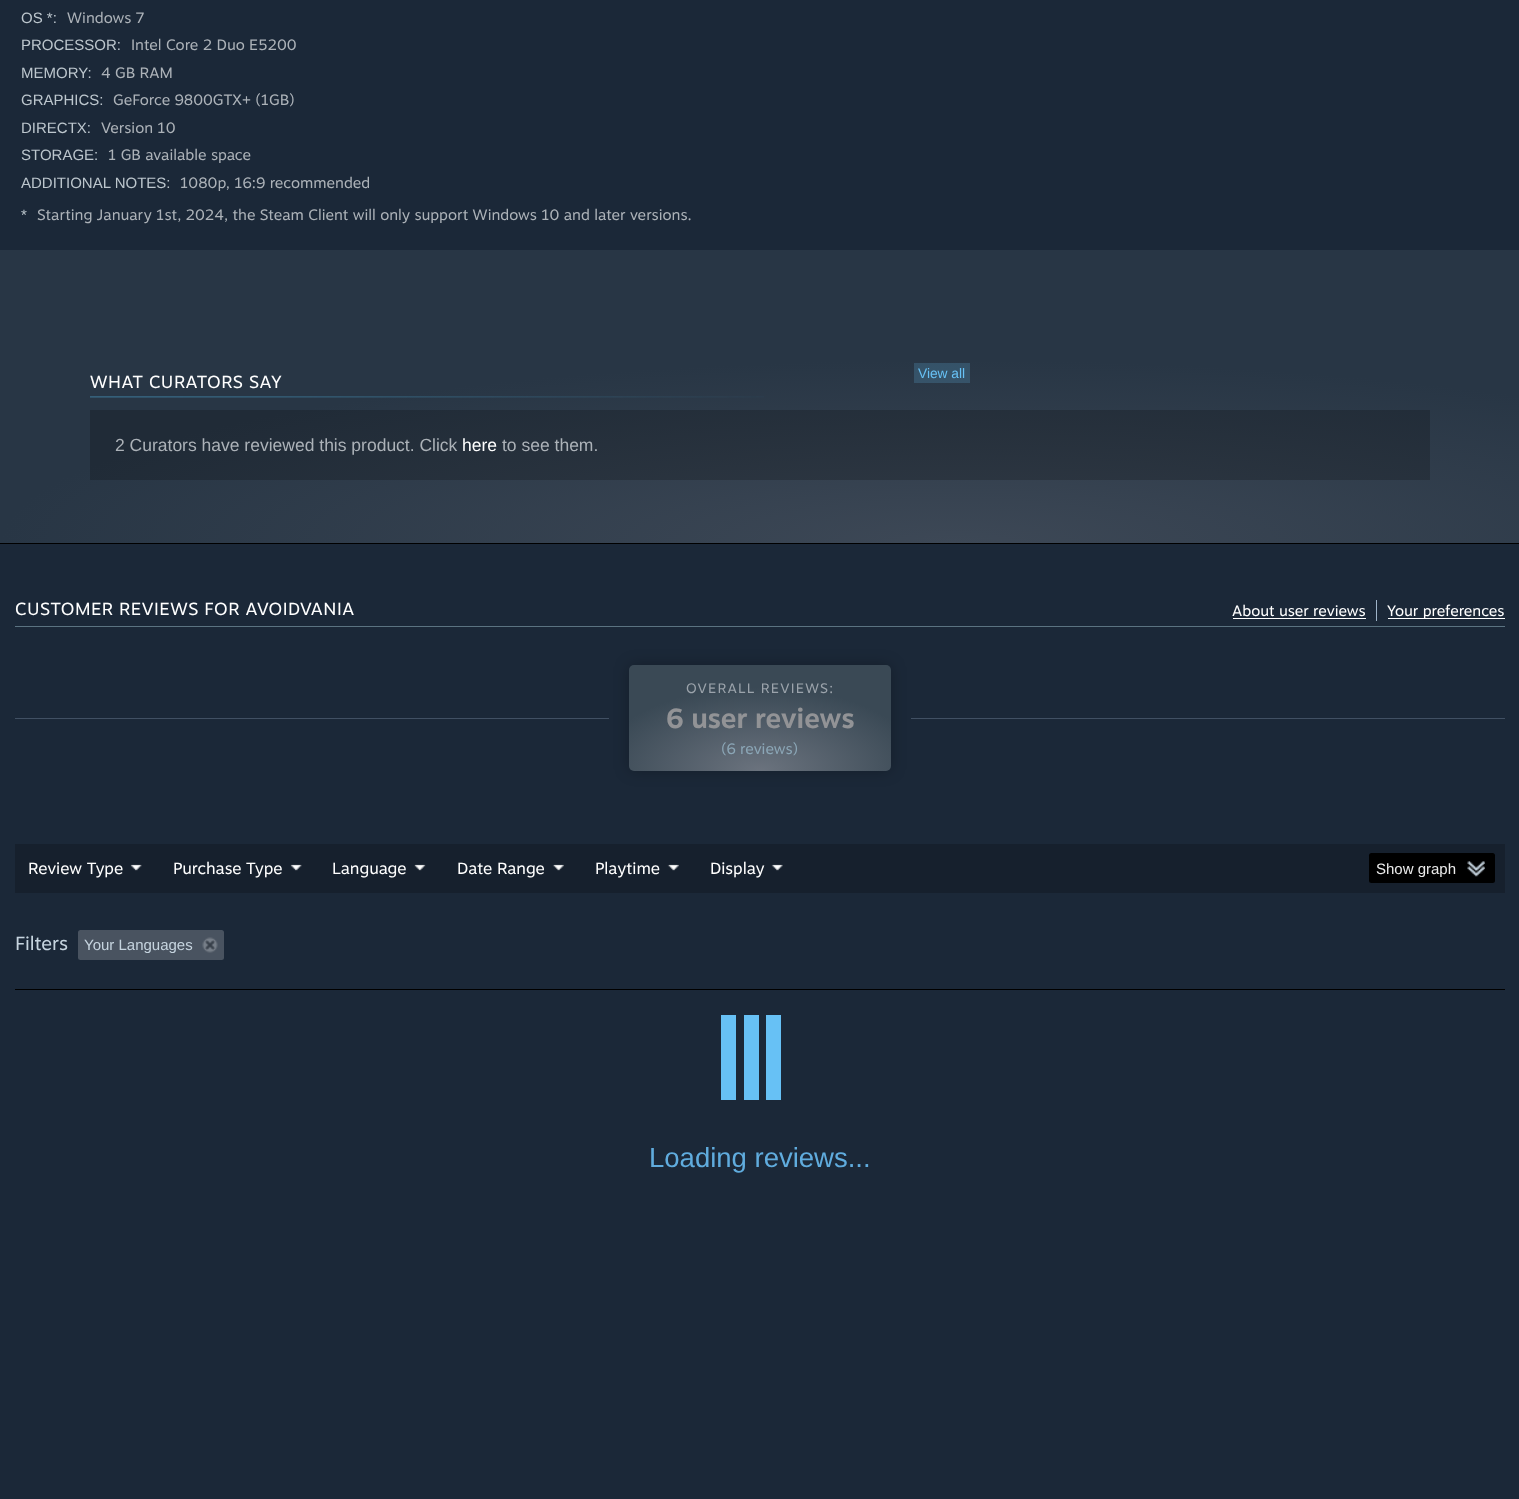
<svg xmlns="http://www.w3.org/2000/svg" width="1519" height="1499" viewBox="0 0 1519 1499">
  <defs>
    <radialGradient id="g1" gradientUnits="userSpaceOnUse" cx="0" cy="0" r="1" gradientTransform="matrix(953 0 0 183 953 543)"><stop offset="0" stop-color="#3d4856"/><stop offset="1" stop-color="#283645"/></radialGradient>
    <radialGradient id="g2" gradientUnits="userSpaceOnUse" cx="0" cy="0" r="1" gradientTransform="matrix(953 0 0 183 953 543)"><stop offset="0" stop-color="#313a45"/><stop offset="1" stop-color="#202b37"/></radialGradient>
    <radialGradient id="g3" gradientUnits="userSpaceOnUse" cx="0" cy="0" r="1" gradientTransform="matrix(165 0 0 84 760 771)"><stop offset="0" stop-color="#6b737e"/><stop offset="1" stop-color="#3a4955"/></radialGradient>
  </defs>
  <rect width="100%" height="100%" fill="#1b2838"/>
  <path d="M0 250h1519v293H0z" fill="url(#g1)"/>
  <path d="M90 410h1340v70H90z" fill="url(#g2)"/>
  <path d="M914 363h56v20H914z" fill="#67c1f533"/>
  <image x="90" y="396" width="674" height="2" href="img/1.png"/>
  <path d="M0 543h1519v1H0z" fill="#000"/>
  <path d="M15 626h1490v1H15z" fill="#5b7381"/>
  <path d="M1233 618h133v1H1233z" fill="#fff"/>
  <path d="M1376 600h1v21H1376z" fill="#9fb4c9"/>
  <path d="M1388 618h117v1H1388z" fill="#fff"/>
  <path d="M15 718h594v1H15z" fill="#415063"/>
  <path d="M911 718h594v1H911z" fill="#415063"/>
  <rect x="629" y="665" width="262" height="106" rx="5" fill="#00000040" filter="blur(7.5px)"/>
  <rect x="629" y="665" width="262" height="106" rx="5" fill="url(#g3)"/>
  <path d="M15 844h1490v49H15z" fill="#16202d"/>
  <image x="130" y="864" width="12" height="7" href="img/2.png"/>
  <image x="290" y="864" width="12" height="7" href="img/2.png"/>
  <image x="414" y="864" width="12" height="7" href="img/3.png"/>
  <image x="552" y="864" width="12" height="7" href="img/4.png"/>
  <image x="667" y="864" width="12" height="7" href="img/4.png"/>
  <image x="771" y="864" width="12" height="7" href="img/5.png"/>
  <rect x="1369" y="853" width="126" height="30" rx="2.5" fill="#000"/>
  <image x="1467" y="861" width="18" height="16" href="img/6.png"/>
  <path d="M15 989h1490v1H15z" fill="#000"/>
  <rect x="78" y="930" width="146" height="30" rx="2.5" fill="#495360"/>
  <image x="202" y="937" width="16" height="16" href="img/7.png"/>
  <path d="M721 1015h15v85H721z" fill="#67c1f5"/>
  <path d="M744 1015h15v85H744z" fill="#67c1f5"/>
  <path d="M766 1015h15v85H766z" fill="#67c1f5"/>
  <text x="21" y="23" font-family="Liberation Sans" font-size="15" fill="#bcc6cd">OS *:</text>
  <text x="67" y="23" font-family="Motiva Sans" font-size="15" fill="#acb2b8">Windows 7</text>
  <text x="21" y="50" font-family="Liberation Sans" font-size="15" fill="#bcc6cd">PROCESSOR:</text>
  <text x="131" y="50" font-family="Motiva Sans" font-size="15" fill="#acb2b8">Intel Core 2 Duo E5200</text>
  <text x="21" y="78" font-family="Liberation Sans" font-size="15" fill="#bcc6cd">MEMORY:</text>
  <text x="101" y="78" font-family="Motiva Sans" font-size="15" fill="#acb2b8">4 GB RAM</text>
  <text x="21" y="105" font-family="Liberation Sans" font-size="15" fill="#bcc6cd">GRAPHICS:</text>
  <text x="113" y="105" font-family="Motiva Sans" font-size="15" fill="#acb2b8">GeForce 9800GTX+ (1GB)</text>
  <text x="21" y="133" font-family="Liberation Sans" font-size="15" fill="#bcc6cd">DIRECTX:</text>
  <text x="101" y="133" font-family="Motiva Sans" font-size="15" fill="#acb2b8">Version 10</text>
  <text x="21" y="160" font-family="Liberation Sans" font-size="15" fill="#bcc6cd">STORAGE:</text>
  <text x="108" y="160" font-family="Motiva Sans" font-size="15" fill="#acb2b8">1 GB available space</text>
  <text x="21" y="188" font-family="Liberation Sans" font-size="15" fill="#bcc6cd">ADDITIONAL NOTES:</text>
  <text x="180" y="188" font-family="Motiva Sans" font-size="15" fill="#acb2b8">1080p, 16:9 recommended</text>
  <text x="21" y="220" font-family="Liberation Sans" font-size="15" fill="#bcc6cd">*</text>
  <text x="37" y="220" font-family="Motiva Sans" font-size="15" fill="#acb2b8">Starting January 1st, 2024, the Steam Client will only support Windows 10 and later versions.</text>
  <text x="918" y="378" font-family="Liberation Sans" font-size="13.75" fill="#67c1f5">View all</text>
  <text x="90" y="388" font-family="Motiva Sans" font-size="17.5" letter-spacing="0.5" fill="#fff">WHAT CURATORS SAY</text>
  <text x="115" y="451" font-family="Liberation Sans" font-size="17.5" fill="#acb2b8">2 Curators have reviewed this product. Click</text>
  <text x="462" y="451" font-family="Liberation Sans" font-size="17.5" fill="#fff">here</text>
  <text x="502" y="451" font-family="Liberation Sans" font-size="17.5" fill="#acb2b8">to see them.</text>
  <text x="15" y="615" font-family="Motiva Sans" font-size="17.5" letter-spacing="0.5" fill="#fff">CUSTOMER REVIEWS FOR AVOIDVANIA</text>
  <g font-family="Motiva Sans" font-size="15" fill="#fff">
    <text x="1232" y="616">About user reviews</text>
    <text x="1387" y="616">Your preferences</text>
  </g>
  <text x="686" y="693" font-family="Motiva Sans" font-size="13.75" letter-spacing="1.25" fill="#9ba3ab">OVERALL REVIEWS:</text>
  <text x="666" y="728" font-family="Motiva Sans" font-size="27.5" font-weight="bold" fill="#929396">6 user reviews</text>
  <text x="721" y="754" font-family="Motiva Sans" font-size="15" fill="#8ba6b6">(6 reviews)</text>
  <g font-family="Motiva Sans" font-size="16.25" fill="#fff">
    <text x="28" y="874">Review Type</text>
    <text x="173" y="874">Purchase Type</text>
    <text x="332" y="874">Language</text>
    <text x="457" y="874">Date Range</text>
    <text x="595" y="874">Playtime</text>
    <text x="710" y="874">Display</text>
  </g>
  <text x="1376" y="874" font-family="Liberation Sans" font-size="15" fill="#ebebeb">Show graph</text>
  <text x="15" y="950" font-family="Motiva Sans" font-size="19" fill="#c6d4df">Filters</text>
  <text x="84" y="950" font-family="Liberation Sans" font-size="15" fill="#c6d4df">Your Languages</text>
  <text x="649" y="1167" font-family="Liberation Sans" font-size="27.5" fill="#60acde">Loading reviews...</text>
</svg>
